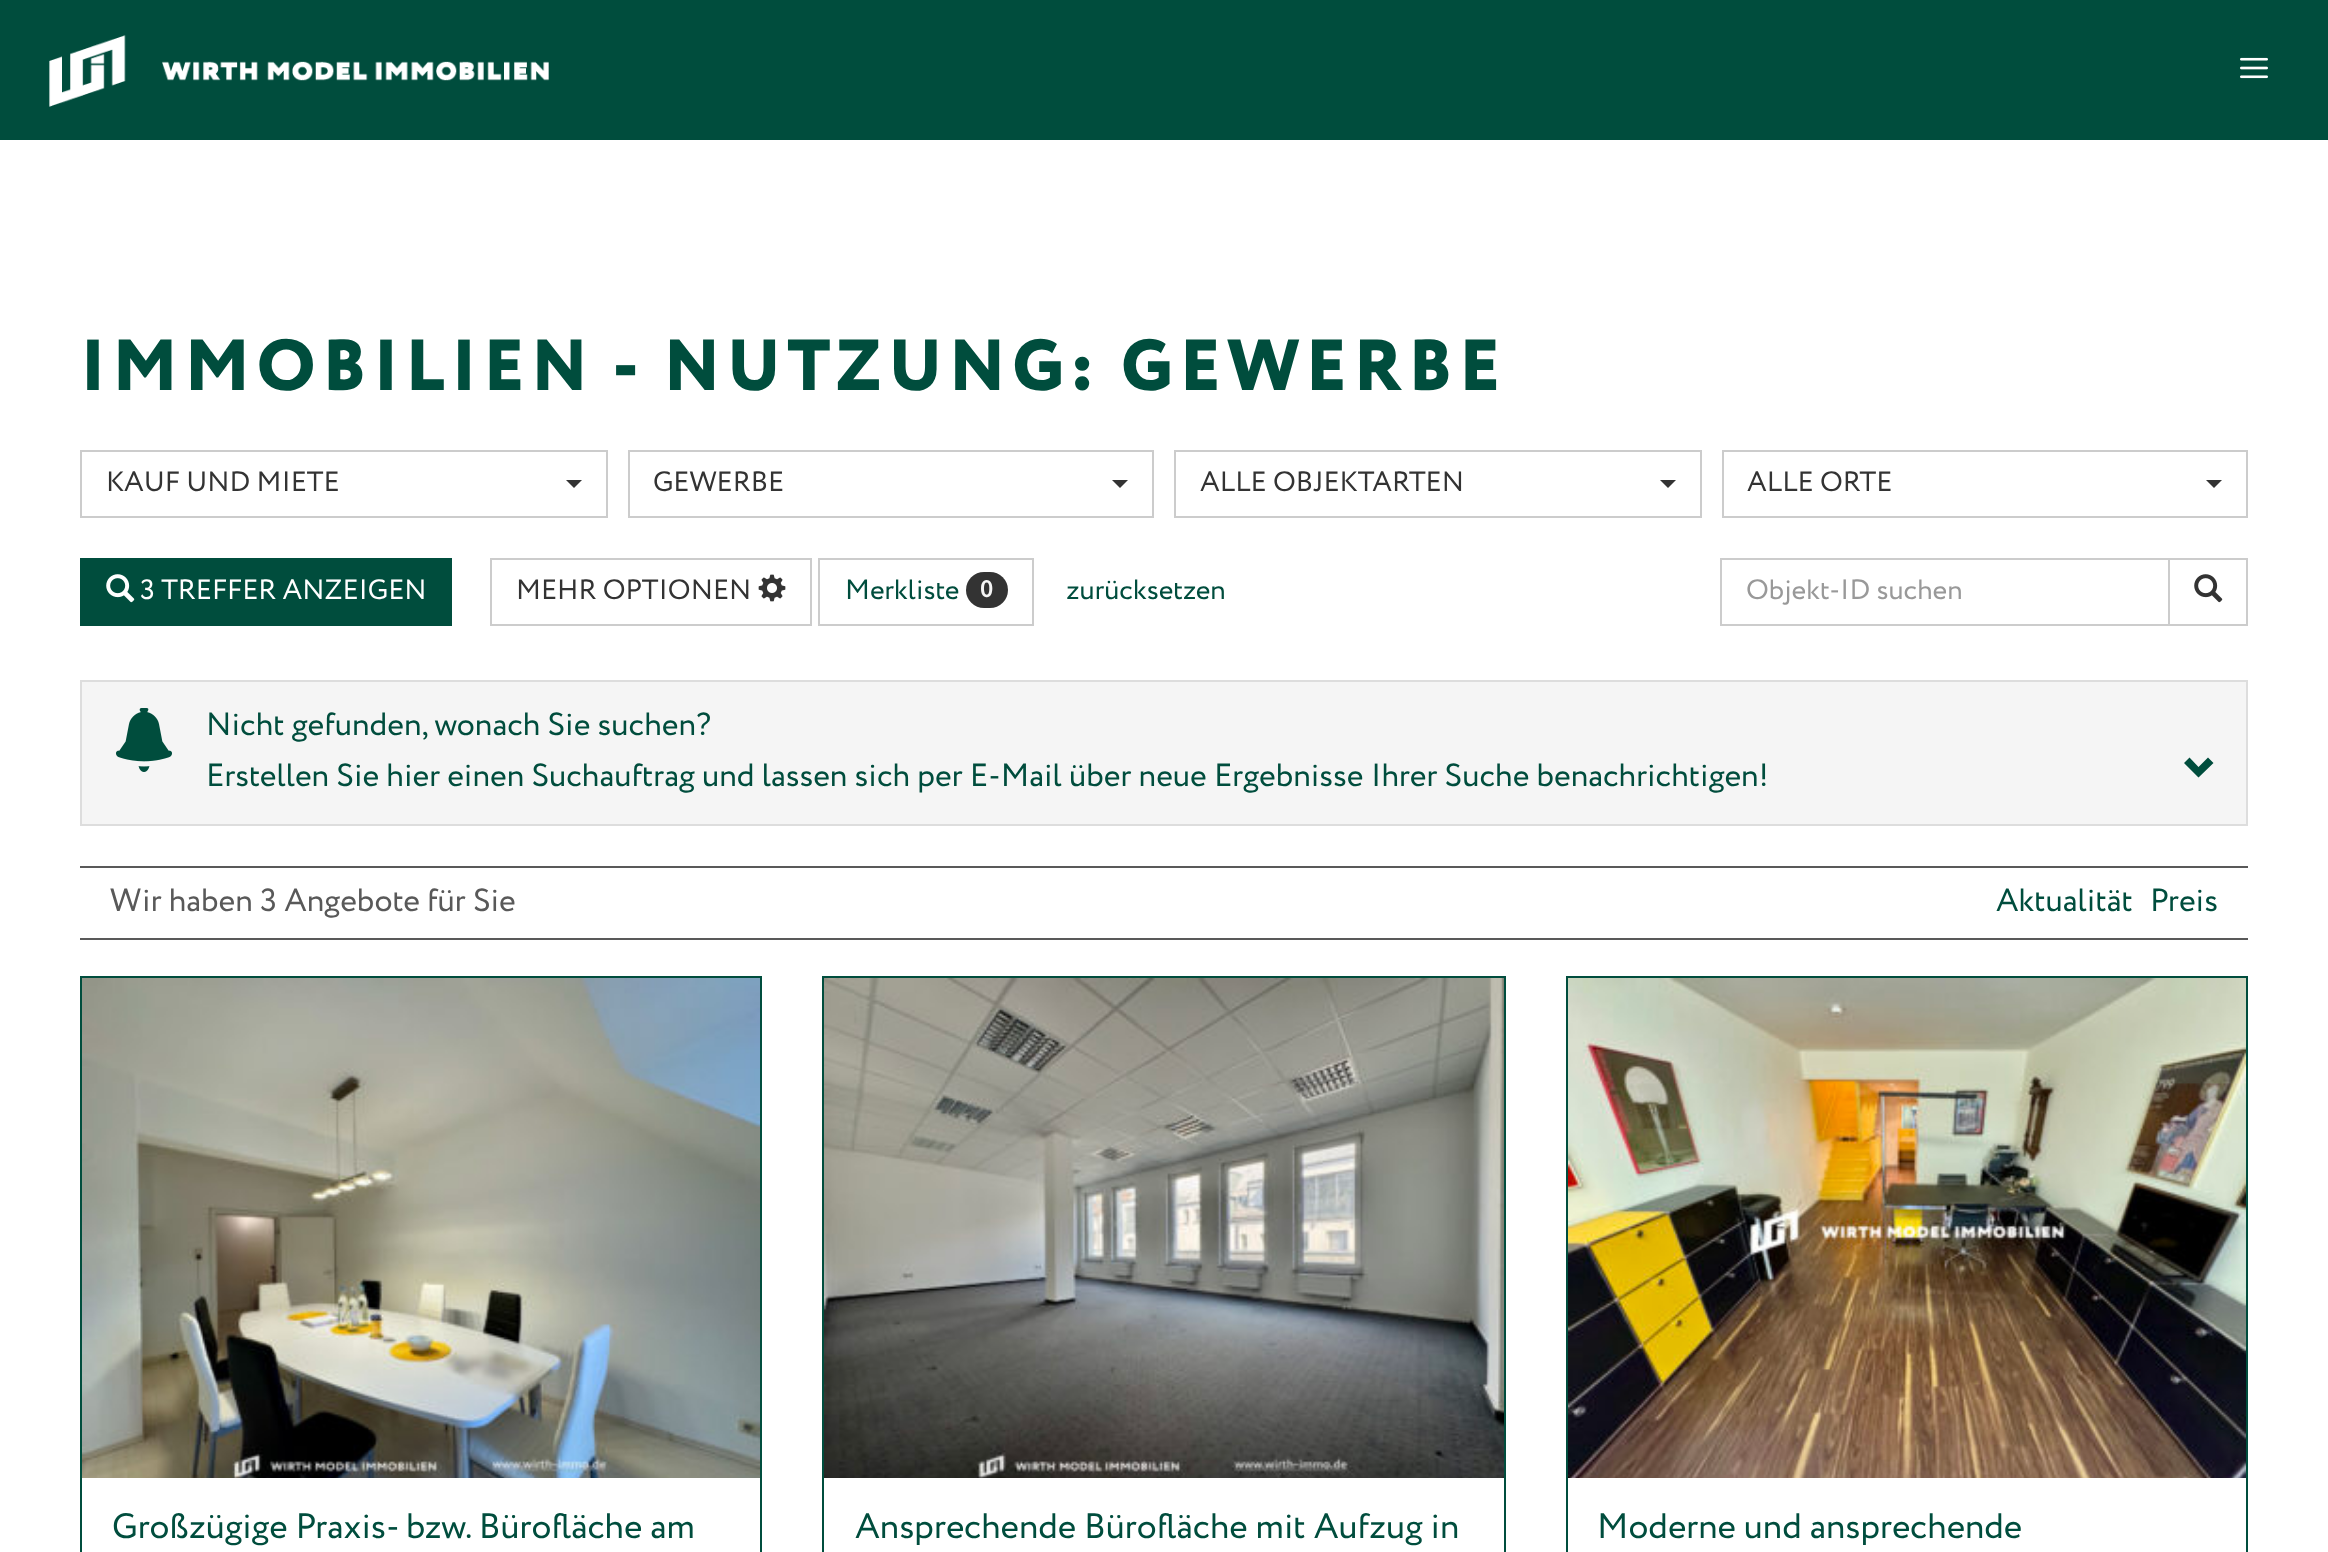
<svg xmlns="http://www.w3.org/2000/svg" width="2328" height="1552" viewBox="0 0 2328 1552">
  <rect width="100%" height="100%" fill="#fff"/>
  <path d="M0 0h2328v140H0z" fill="#004d3d"/>
  <image x="49" y="35" width="500" height="72" href="img/1.png"/>
  <image x="2240" y="57" width="28" height="22" href="img/2.png"/>
  <path d="M81 451h526v66H81z" fill="none" stroke="#ccc" stroke-width="2"/>
  <path d="M566 480H582L574 488Z" fill="#333"/>
  <path d="M629 451h524v66H629z" fill="none" stroke="#ccc" stroke-width="2"/>
  <path d="M1112 480H1128L1120 488Z" fill="#333"/>
  <path d="M1175 451h526v66H1175z" fill="none" stroke="#ccc" stroke-width="2"/>
  <path d="M1660 480H1676L1668 488Z" fill="#333"/>
  <path d="M1723 451h524v66H1723z" fill="none" stroke="#ccc" stroke-width="2"/>
  <path d="M2206 480H2222L2214 488Z" fill="#333"/>
  <path d="M80 558h372v68H80z" fill="#004d3d"/>
  <image x="106" y="574" width="29" height="29" href="img/3.png"/>
  <path d="M491 559h320v66H491z" fill="none" stroke="#ccc" stroke-width="2"/>
  <image x="758" y="574" width="28" height="28" href="img/4.png"/>
  <path d="M819 559h214v66H819z" fill="none" stroke="#ccc" stroke-width="2"/>
  <rect x="966" y="572" width="42" height="36" rx="18" fill="#333"/>
  <path d="M1721 559h462v66H1721z" fill="none" stroke="#ccc" stroke-width="2"/>
  <path d="M2182 560h2v64H2182z" fill="#fff"/>
  <path d="M2169 559h78v66H2169z" fill="none" stroke="#ccc" stroke-width="2"/>
  <image x="2194" y="574" width="29" height="29" href="img/5.png"/>
  <path d="M81 681h2166v144H81z" fill="none" stroke="#ddd" stroke-width="2"/>
  <path d="M82 682h2164v142H82z" fill="#f5f5f5"/>
  <image x="116" y="708" width="56" height="64" href="img/6.png"/>
  <path d="M2213.5 763L2198.5 777.5L2184 763L2189.5 757.5L2198.5 767L2208 757.5Z" fill="#004d3d"/>
  <path d="M80 866h2168v2H80z" fill="#595959"/>
  <path d="M80 938h2168v2H80z" fill="#595959"/>
  <path d="M81 977h680v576H81z" fill="none" stroke="#004d3d" stroke-width="2"/>
  <image x="82" y="978" width="678" height="500" href="img/7.png"/>
  <path d="M823 977h682v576H823z" fill="none" stroke="#004d3d" stroke-width="2"/>
  <image x="824" y="978" width="680" height="500" href="img/8.png"/>
  <path d="M1567 977h680v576H1567z" fill="none" stroke="#004d3d" stroke-width="2"/>
  <image x="1568" y="978" width="678" height="500" href="img/9.png"/>
  <text x="80" y="390" font-family="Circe" font-size="72" font-weight="800" letter-spacing="6.4" fill="#004d3d">IMMOBILIEN - NUTZUNG: GEWERBE</text>
  <g font-family="Circe" font-size="28" fill="#333">
    <text x="106" y="491">KAUF UND MIETE</text>
    <text x="653" y="491">GEWERBE</text>
    <text x="1200" y="491">ALLE OBJEKTARTEN</text>
    <text x="1747" y="491">ALLE ORTE</text>
  </g>
  <text x="140" y="599" font-family="Circe" font-size="28" fill="#fff">3 TREFFER ANZEIGEN</text>
  <text x="516" y="599" font-family="Circe" font-size="28" fill="#333">MEHR OPTIONEN</text>
  <text x="845" y="599" font-family="Circe" font-size="28" fill="#004d3d">Merkliste</text>
  <text x="980" y="597" font-family="Circe" font-size="24" font-weight="bold" fill="#f5f5f5">0</text>
  <text x="1066" y="599" font-family="Circe" font-size="28" fill="#004d3d">zurücksetzen</text>
  <text x="1746" y="599" font-family="Circe" font-size="28" fill="#999">Objekt-ID suchen</text>
  <g font-family="Circe" font-size="32" fill="#004d3d">
    <text x="206" y="735">Nicht gefunden, wonach Sie suchen?</text>
    <text x="206" y="786">Erstellen Sie hier einen Suchauftrag und lassen sich per E-Mail über neue Ergebnisse Ihrer Suche benachrichtigen!</text>
  </g>
  <text x="110" y="911" font-family="Circe" font-size="32" fill="#595959">Wir haben 3 Angebote für Sie</text>
  <g font-family="Circe" font-size="32" fill="#004d3d">
    <text x="1996" y="911">Aktualität</text>
    <text x="2150" y="911">Preis</text>
  </g>
  <g font-family="Circe" font-size="35.25" fill="#004d3d">
    <text x="112" y="1538">Großzügige Praxis- bzw. Bürofläche am</text>
    <text x="855" y="1538">Ansprechende Bürofläche mit Aufzug in</text>
    <text x="1597" y="1538">Moderne und ansprechende</text>
  </g>
</svg>
